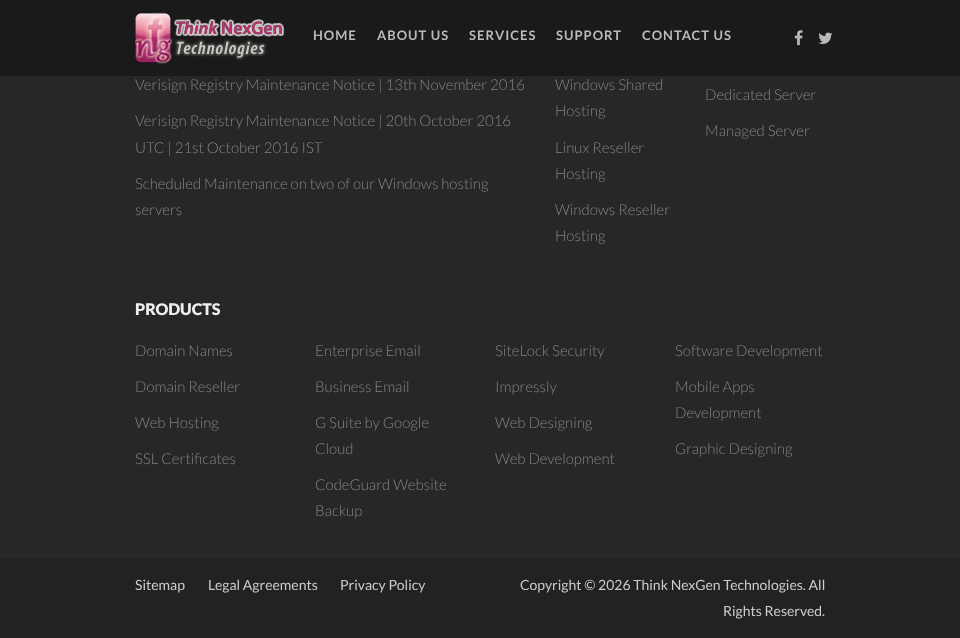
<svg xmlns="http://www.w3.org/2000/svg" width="960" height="638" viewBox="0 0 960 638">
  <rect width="100%" height="100%" fill="#272727"/>
  <path d="M0 0h960v76H0z" fill="#1a1a1a"/>
  <image x="135" y="12" width="150" height="52" href="img/1.png"/>
  <image x="794" y="30" width="9" height="16" href="img/2.png"/>
  <image x="818" y="32" width="15" height="12" href="img/3.png"/>
  <path d="M0 558h960v80H0z" fill="#222"/>
  <g font-family="Lato" font-size="13" font-weight="bold" letter-spacing="1" fill="#bababa">
    <text x="313" y="40">HOME</text>
    <text x="377" y="40">ABOUT US</text>
    <text x="469" y="40">SERVICES</text>
    <text x="556" y="40">SUPPORT</text>
    <text x="642" y="40">CONTACT US</text>
  </g>
  <g font-family="Lato" font-size="15" font-weight="300" fill="#838383">
    <text x="135" y="90">Verisign Registry Maintenance Notice | 13th November 2016</text>
    <text x="135" y="126">Verisign Registry Maintenance Notice | 20th October 2016</text>
    <text x="135" y="153">UTC | 21st October 2016 IST</text>
    <text x="135" y="189">Scheduled Maintenance on two of our Windows hosting</text>
    <text x="135" y="215">servers</text>
    <text x="555" y="90">Windows Shared</text>
    <text x="555" y="116">Hosting</text>
    <text x="555" y="153">Linux Reseller</text>
    <text x="555" y="179">Hosting</text>
    <text x="555" y="215">Windows Reseller</text>
    <text x="555" y="241">Hosting</text>
    <text x="705" y="100">Dedicated Server</text>
    <text x="705" y="136">Managed Server</text>
  </g>
  <text x="135" y="315" font-family="Lato" font-size="16" font-weight="900" fill="#eee">PRODUCTS</text>
  <g font-family="Lato" font-size="15" font-weight="300" fill="#838383">
    <text x="135" y="356">Domain Names</text>
    <text x="135" y="392">Domain Reseller</text>
    <text x="135" y="428">Web Hosting</text>
    <text x="135" y="464">SSL Certificates</text>
    <text x="315" y="356">Enterprise Email</text>
    <text x="315" y="392">Business Email</text>
    <text x="315" y="428">G Suite by Google</text>
    <text x="315" y="454">Cloud</text>
    <text x="315" y="490">CodeGuard Website</text>
    <text x="315" y="516">Backup</text>
    <text x="495" y="356">SiteLock Security</text>
    <text x="495" y="392">Impressly</text>
    <text x="495" y="428">Web Designing</text>
    <text x="495" y="464">Web Development</text>
    <text x="675" y="356">Software Development</text>
    <text x="675" y="392">Mobile Apps</text>
    <text x="675" y="418">Development</text>
    <text x="675" y="454">Graphic Designing</text>
  </g>
  <g font-family="Lato" font-size="14" fill="#ccc">
    <text x="135" y="590">Sitemap</text>
    <text x="208" y="590">Legal Agreements</text>
    <text x="340" y="590">Privacy Policy</text>
    <text x="520" y="590">Copyright © 2026 Think NexGen Technologies. All</text>
    <text x="723" y="616">Rights Reserved.</text>
  </g>
</svg>
